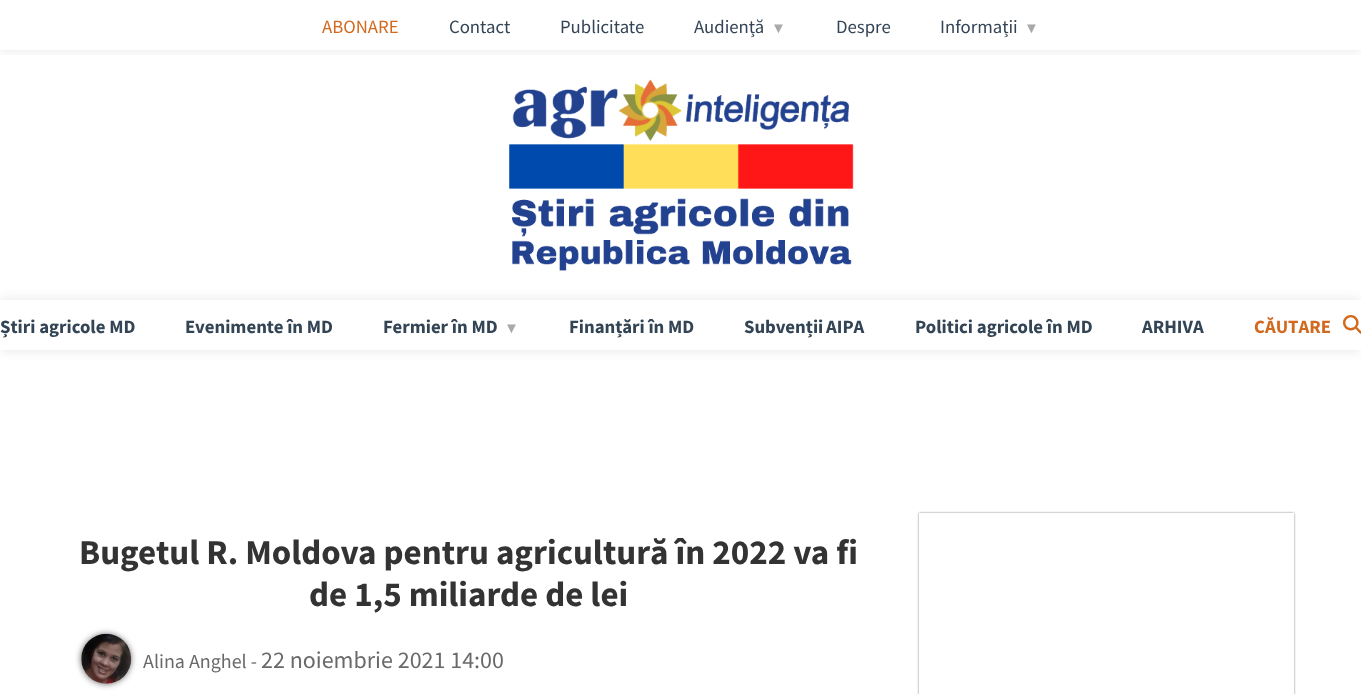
<svg xmlns="http://www.w3.org/2000/svg" width="1361" height="694" viewBox="0 0 1361 694">
  <defs>
    <clipPath id="clip1"><path d="M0 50h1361v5H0z"/></clipPath>
    <clipPath id="clip2"><path d="M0 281H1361V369H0ZM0 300H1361V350H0Z" clip-rule="evenodd"/></clipPath>
    <clipPath id="clip3"><path d="M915 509H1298V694H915ZM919 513H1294V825H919Z" clip-rule="evenodd"/></clipPath>
  </defs>
  <rect width="100%" height="100%" fill="#fff"/>
  <g clip-path="url(#clip1)">
    <path d="M0 0h1361v50H0z" fill="#0000001a" filter="blur(6px)"/>
  </g>
  <image x="509" y="79" width="345" height="192" href="img/1.png"/>
  <g clip-path="url(#clip2)">
    <path d="M0 300h1361v50H0z" fill="#0000001a" filter="blur(6px)"/>
  </g>
  <rect x="81" y="634" width="50" height="50" rx="25" fill="#696969" filter="blur(3px)"/>
  <image x="81" y="633" width="51" height="51" href="img/2.png"/>
  <g clip-path="url(#clip3)">
    <path d="M919 513h375v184H919z" fill="#00000080" filter="blur(1px)"/>
  </g>
  <text x="322" y="33" font-family="Source Sans Pro" font-size="18.75" fill="#d2691e">ABONARE</text>
  <g font-family="Source Sans Pro" font-size="18.75" fill="#345">
    <text x="449" y="33">Contact</text>
    <text x="560" y="33">Publicitate</text>
    <text x="694" y="33">Audiență</text>
  </g>
  <text x="771" y="33" font-family="Liberation Sans" font-size="15" fill="#a9a9a9">▼</text>
  <g font-family="Source Sans Pro" font-size="18.75" fill="#345">
    <text x="836" y="33">Despre</text>
    <text x="940" y="33">Informații</text>
  </g>
  <text x="1024" y="33" font-family="Liberation Sans" font-size="15" fill="#a9a9a9">▼</text>
  <g font-family="Source Sans Pro" font-size="18.75" font-weight="bold" fill="#345">
    <text x="0" y="333">Știri agricole MD</text>
    <text x="185" y="333">Evenimente în MD</text>
    <text x="383" y="333">Fermier în MD</text>
  </g>
  <text x="504" y="333" font-family="Liberation Sans" font-size="15" font-weight="bold" fill="#a9a9a9">▼</text>
  <g font-family="Source Sans Pro" font-size="18.75" font-weight="bold" fill="#345">
    <text x="569" y="333">Finanțări în MD</text>
    <text x="744" y="333" word-spacing="-1">Subvenții AIPA</text>
    <text x="915" y="333">Politici agricole în MD</text>
    <text x="1142" y="333">ARHIVA</text>
  </g>
  <text x="1254" y="333" font-family="Source Sans Pro" font-size="18.75" font-weight="bold" fill="#d2691e">CĂUTARE</text>
  <text x="1343" y="333" font-family="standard" font-size="18.75" font-weight="bold" fill="#d2691e">⚲</text>
  <g font-family="Source Sans Pro" font-size="35" font-weight="bold" fill="#333">
    <text x="79" y="564">Bugetul R. Moldova pentru agricultură în 2022 va fi</text>
    <text x="309" y="606">de 1,5 miliarde de lei</text>
  </g>
  <text x="143" y="668" font-family="Source Sans Pro" font-size="20" fill="#696969">Alina Anghel -</text>
  <text x="261" y="668" font-family="Source Sans Pro" font-size="24" fill="#696969">22 noiembrie 2021 14:00</text>
</svg>
